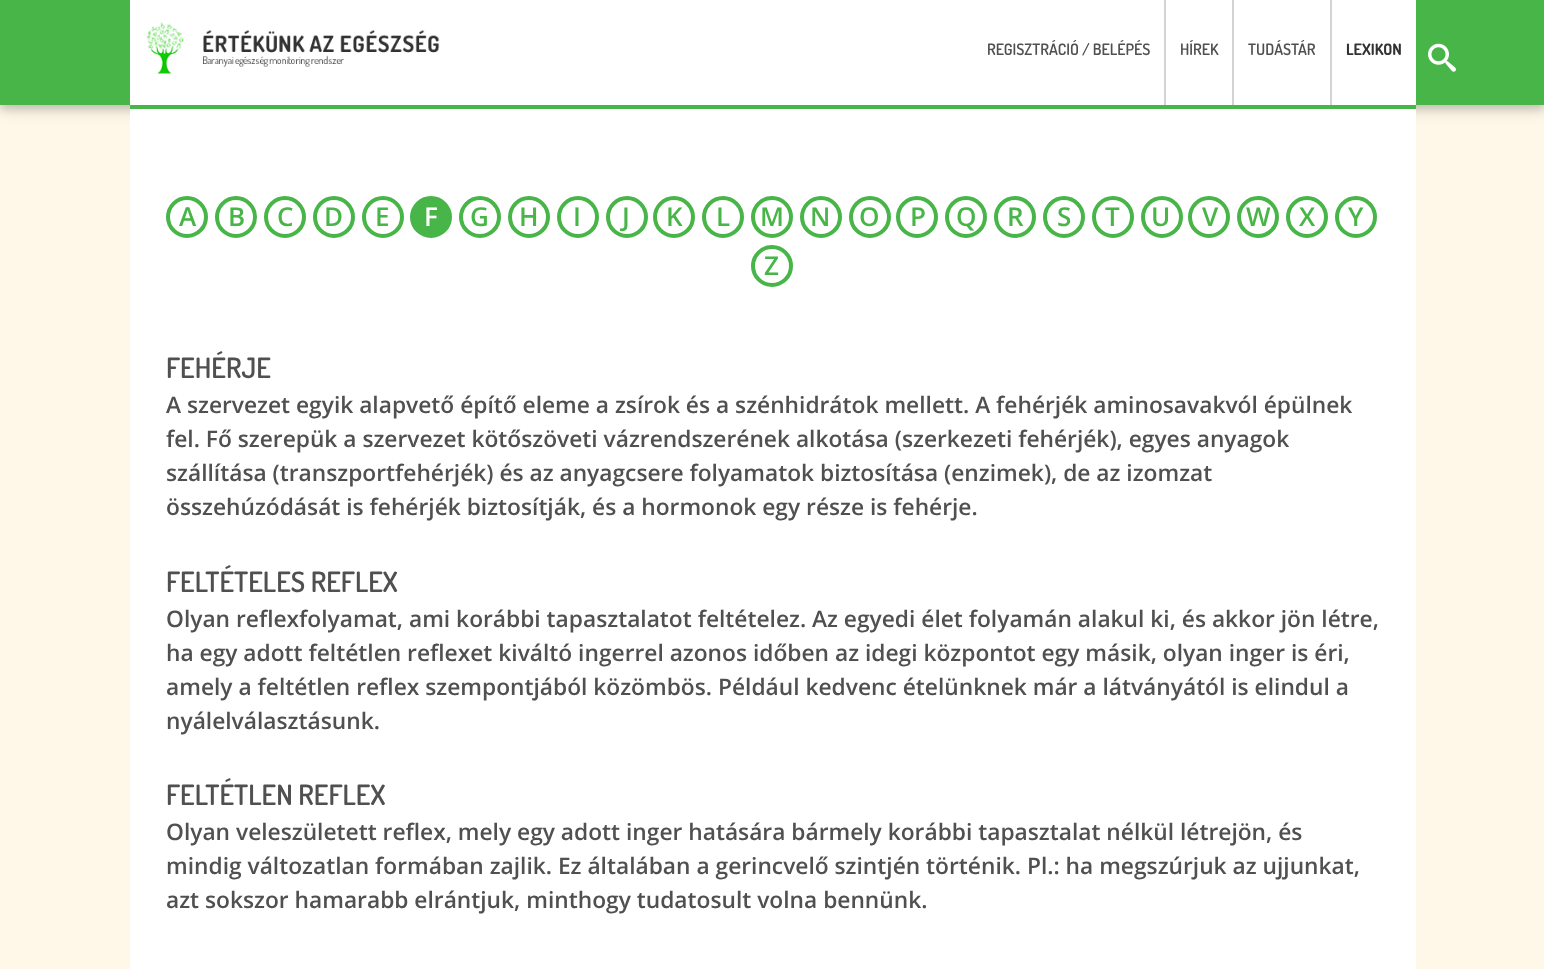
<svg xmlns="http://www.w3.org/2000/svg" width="1544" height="969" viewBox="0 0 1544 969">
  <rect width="100%" height="100%" fill="#fff8e9"/>
  <path d="M0 4h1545v105H0z" fill="#0000001f" filter="blur(9px)"/>
  <path d="M0 4h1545v105H0z" fill="#00000029" filter="blur(4.5px)"/>
  <path d="M0 0h1544v105H0z" fill="#47b547"/>
  <path d="M130 0h1286v105H130z" fill="#fff"/>
  <image x="147" y="22" width="293" height="52" href="img/1.png"/>
  <path d="M1164 0h2v105H1164z" fill="#d4d4d4"/>
  <path d="M1232 0h2v105H1232z" fill="#d4d4d4"/>
  <path d="M1330 0h2v105H1330z" fill="#d4d4d4"/>
  <image x="1428" y="43" width="28" height="29" href="img/2.png"/>
  <path d="M130 109h1286v860H130z" fill="#fff"/>
  <path d="M130 105h1286v4H130z" fill="#47b547"/>
  <circle cx="187" cy="217" r="19" fill="none" stroke="#47b547" stroke-width="4"/>
  <circle cx="236" cy="217" r="19" fill="none" stroke="#47b547" stroke-width="4"/>
  <circle cx="285" cy="217" r="19" fill="none" stroke="#47b547" stroke-width="4"/>
  <circle cx="334" cy="217" r="19" fill="none" stroke="#47b547" stroke-width="4"/>
  <circle cx="383" cy="217" r="19" fill="none" stroke="#47b547" stroke-width="4"/>
  <circle cx="431" cy="217" r="19" fill="#47b547" stroke="#47b547" stroke-width="4"/>
  <circle cx="480" cy="217" r="19" fill="none" stroke="#47b547" stroke-width="4"/>
  <circle cx="529" cy="217" r="19" fill="none" stroke="#47b547" stroke-width="4"/>
  <circle cx="578" cy="217" r="19" fill="none" stroke="#47b547" stroke-width="4"/>
  <circle cx="627" cy="217" r="19" fill="none" stroke="#47b547" stroke-width="4"/>
  <circle cx="674" cy="217" r="19" fill="none" stroke="#47b547" stroke-width="4"/>
  <circle cx="723" cy="217" r="19" fill="none" stroke="#47b547" stroke-width="4"/>
  <circle cx="772" cy="217" r="19" fill="none" stroke="#47b547" stroke-width="4"/>
  <circle cx="821" cy="217" r="19" fill="none" stroke="#47b547" stroke-width="4"/>
  <circle cx="870" cy="217" r="19" fill="none" stroke="#47b547" stroke-width="4"/>
  <circle cx="917" cy="217" r="19" fill="none" stroke="#47b547" stroke-width="4"/>
  <circle cx="966" cy="217" r="19" fill="none" stroke="#47b547" stroke-width="4"/>
  <circle cx="1015" cy="217" r="19" fill="none" stroke="#47b547" stroke-width="4"/>
  <circle cx="1064" cy="217" r="19" fill="none" stroke="#47b547" stroke-width="4"/>
  <circle cx="1113" cy="217" r="19" fill="none" stroke="#47b547" stroke-width="4"/>
  <circle cx="1162" cy="217" r="19" fill="none" stroke="#47b547" stroke-width="4"/>
  <circle cx="1209" cy="217" r="19" fill="none" stroke="#47b547" stroke-width="4"/>
  <circle cx="1258" cy="217" r="19" fill="none" stroke="#47b547" stroke-width="4"/>
  <circle cx="1307" cy="217" r="19" fill="none" stroke="#47b547" stroke-width="4"/>
  <circle cx="1356" cy="217" r="19" fill="none" stroke="#47b547" stroke-width="4"/>
  <circle cx="772" cy="266" r="19" fill="none" stroke="#47b547" stroke-width="4"/>
  <g font-family="Dosis" font-size="15.75" font-weight="600" fill="#505050">
    <text x="987" y="55">REGISZTRÁCIÓ / BELÉPÉS</text>
    <text x="1180" y="55">HÍREK</text>
    <text x="1248" y="55">TUDÁSTÁR</text>
  </g>
  <text x="1346" y="55" font-family="Dosis" font-size="15.75" font-weight="bold" fill="#323232">LEXIKON</text>
  <g font-family="Open Sans" font-size="26" font-weight="600" fill="#47b547">
    <text x="179" y="226">A</text>
    <text x="228" y="226">B</text>
    <text x="277" y="226">C</text>
    <text x="324" y="226">D</text>
    <text x="375" y="226">E</text>
  </g>
  <text x="424" y="226" font-family="Open Sans" font-size="26" font-weight="600" fill="#fff">F</text>
  <g font-family="Open Sans" font-size="26" font-weight="600" fill="#47b547">
    <text x="470" y="226">G</text>
    <text x="519" y="226">H</text>
    <text x="573" y="226">I</text>
    <text x="622" y="226">J</text>
    <text x="666" y="226">K</text>
    <text x="716" y="226">L</text>
    <text x="760" y="226">M</text>
    <text x="810" y="226">N</text>
    <text x="859" y="226">O</text>
    <text x="910" y="226">P</text>
    <text x="956" y="226">Q</text>
    <text x="1007" y="226">R</text>
    <text x="1057" y="226">S</text>
    <text x="1105" y="226">T</text>
    <text x="1151" y="226">U</text>
    <text x="1202" y="226">V</text>
    <text x="1246" y="226">W</text>
    <text x="1299" y="226">X</text>
    <text x="1348" y="226">Y</text>
    <text x="764" y="275">Z</text>
  </g>
  <text x="166" y="378" font-family="Dosis" font-size="28" font-weight="600" fill="#505050">FEHÉRJE</text>
  <g font-family="Open Sans" font-size="22.75" font-weight="600" fill="#505050">
    <text x="166" y="413">A szervezet egyik alapvető építő eleme a zsírok és a szénhidrátok mellett. A fehérjék aminosavakvól épülnek</text>
    <text x="166" y="447">fel. Fő szerepük a szervezet kötőszöveti vázrendszerének alkotása (szerkezeti fehérjék), egyes anyagok</text>
    <text x="166" y="481">szállítása (transzportfehérjék) és az anyagcsere folyamatok biztosítása (enzimek), de az izomzat</text>
    <text x="166" y="515">összehúzódását is fehérjék biztosítják, és a hormonok egy része is fehérje.</text>
  </g>
  <text x="166" y="592" font-family="Dosis" font-size="28" font-weight="600" fill="#505050">FELTÉTELES REFLEX</text>
  <g font-family="Open Sans" font-size="22.75" font-weight="600" fill="#505050">
    <text x="166" y="627">Olyan reflexfolyamat, ami korábbi tapasztalatot feltételez. Az egyedi élet folyamán alakul ki, és akkor jön létre,</text>
    <text x="166" y="661">ha egy adott feltétlen reflexet kiváltó ingerrel azonos időben az idegi központot egy másik, olyan inger is éri,</text>
    <text x="166" y="695">amely a feltétlen reflex szempontjából közömbös. Például kedvenc ételünknek már a látványától is elindul a</text>
    <text x="166" y="729">nyálelválasztásunk.</text>
  </g>
  <text x="166" y="805" font-family="Dosis" font-size="28" font-weight="600" fill="#505050">FELTÉTLEN REFLEX</text>
  <g font-family="Open Sans" font-size="22.75" font-weight="600" fill="#505050">
    <text x="166" y="840">Olyan veleszületett reflex, mely egy adott inger hatására bármely korábbi tapasztalat nélkül létrejön, és</text>
    <text x="166" y="874">mindig változatlan formában zajlik. Ez általában a gerincvelő szintjén történik. Pl.: ha megszúrjuk az ujjunkat,</text>
    <text x="166" y="908">azt sokszor hamarabb elrántjuk, minthogy tudatosult volna bennünk.</text>
  </g>
</svg>
